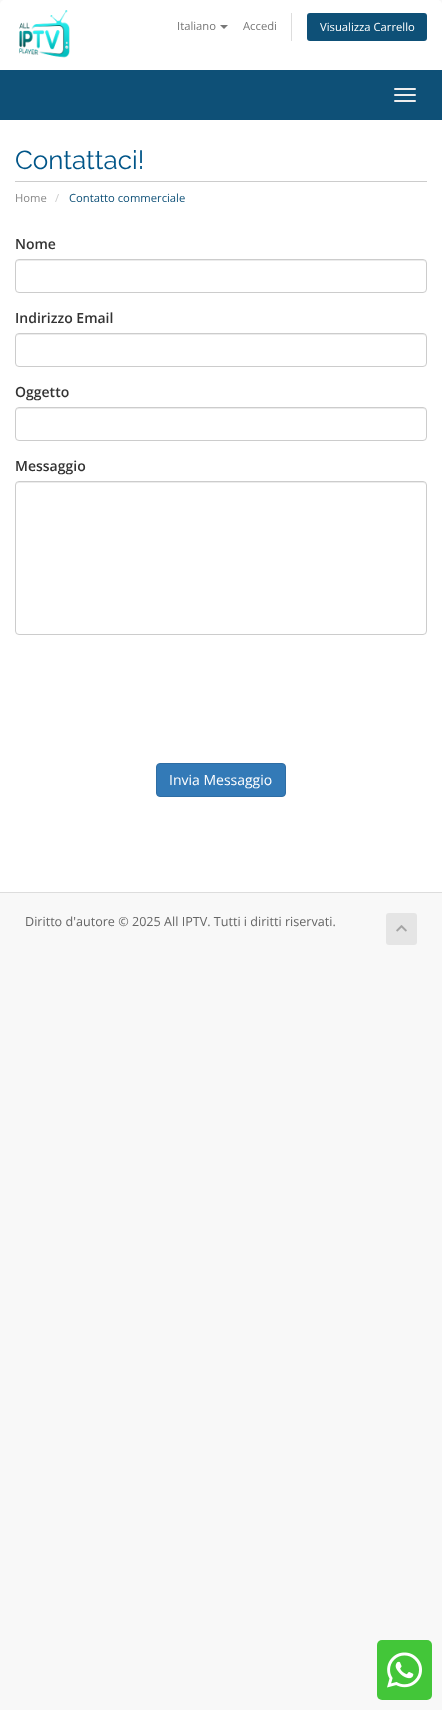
<svg xmlns="http://www.w3.org/2000/svg" width="442" height="1710" viewBox="0 0 442 1710">
  <rect width="100%" height="100%" fill="#f8f8f8"/>
  <path d="M5 0H437C440 0 442 2 442 5V70H0V5C0 2 2 0 5 0Z" fill="#fff"/>
  <image x="19" y="10" width="51" height="48" href="img/1.png"/>
  <path d="M220 25H228L224 29Z" fill="#777"/>
  <path d="M291 13h1v28H291z" fill="#ddd"/>
  <rect x="307" y="13" width="120" height="28" rx="3" fill="#0e5077"/>
  <path d="M0 70h442v50H0z" fill="#0e5077"/>
  <rect x="394" y="88" width="22" height="2" rx="1" fill="#eee"/>
  <rect x="394" y="94" width="22" height="2" rx="1" fill="#eee"/>
  <rect x="394" y="100" width="22" height="2" rx="1" fill="#eee"/>
  <path d="M0 120h442v772H0z" fill="#fff"/>
  <path d="M15 181h412v1H15z" fill="#ccc"/>
  <path d="M19 261H423C425 261 426 262 426 264C426 262 425 260 423 260H19C17 260 16 262 16 264C16 262 17 261 19 261Z" fill="#ececec"/>
  <rect x="15.5" y="259.5" width="411" height="33" rx="3.5" fill="none" stroke="#ccc"/>
  <path d="M19 335H423C425 335 426 336 426 338C426 336 425 334 423 334H19C17 334 16 336 16 338C16 336 17 335 19 335Z" fill="#ececec"/>
  <rect x="15.5" y="333.5" width="411" height="33" rx="3.5" fill="none" stroke="#ccc"/>
  <path d="M19 409H423C425 409 426 410 426 412C426 410 425 408 423 408H19C17 408 16 410 16 412C16 410 17 409 19 409Z" fill="#ececec"/>
  <rect x="15.5" y="407.5" width="411" height="33" rx="3.5" fill="none" stroke="#ccc"/>
  <path d="M19 483H423C425 483 426 484 426 486C426 484 425 482 423 482H19C17 482 16 484 16 486C16 484 17 483 19 483Z" fill="#ececec"/>
  <rect x="15.5" y="481.5" width="411" height="153" rx="3.5" fill="none" stroke="#ccc"/>
  <rect x="156.5" y="763.5" width="129" height="33" rx="3.5" fill="#337ab7" stroke="#2e6da4"/>
  <path d="M0 892h442v1H0z" fill="#ddd"/>
  <rect x="386" y="913" width="31" height="32" rx="3" fill="#e5e5e5"/>
  <image x="396" y="925" width="11" height="7" href="img/2.png"/>
  <rect x="377" y="1640" width="55" height="60" rx="5" fill="#43c639"/>
  <image x="387" y="1652" width="35" height="36" href="img/3.png"/>
  <g font-family="Open Sans" font-size="11.25" fill="#777">
    <text x="177" y="30">Italiano</text>
    <text x="243" y="30">Accedi</text>
  </g>
  <text x="320" y="31" font-family="Open Sans" font-size="11.25" fill="#fff">Visualizza Carrello</text>
  <text x="15" y="169" font-family="Raleway" font-size="26" fill="#058">Contattaci!</text>
  <text x="15" y="202" font-family="Open Sans" font-size="11.25" fill="#888">Home</text>
  <text x="55" y="202" font-family="Open Sans" font-size="11.25" fill="#ccc">/</text>
  <text x="69" y="202" font-family="Open Sans" font-size="11.25" fill="#0e5077">Contatto commerciale</text>
  <g font-family="Open Sans" font-size="14" font-weight="600" fill="#333">
    <text x="15" y="249">Nome</text>
    <text x="15" y="323">Indirizzo Email</text>
    <text x="15" y="397">Oggetto</text>
    <text x="15" y="471">Messaggio</text>
  </g>
  <text x="169" y="785" font-family="Open Sans" font-size="14" fill="#fff">Invia Messaggio</text>
  <text x="25" y="926" font-family="Open Sans" font-size="12.6" fill="#666">Diritto d'autore © 2025 All IPTV. Tutti i diritti riservati.</text>
</svg>
